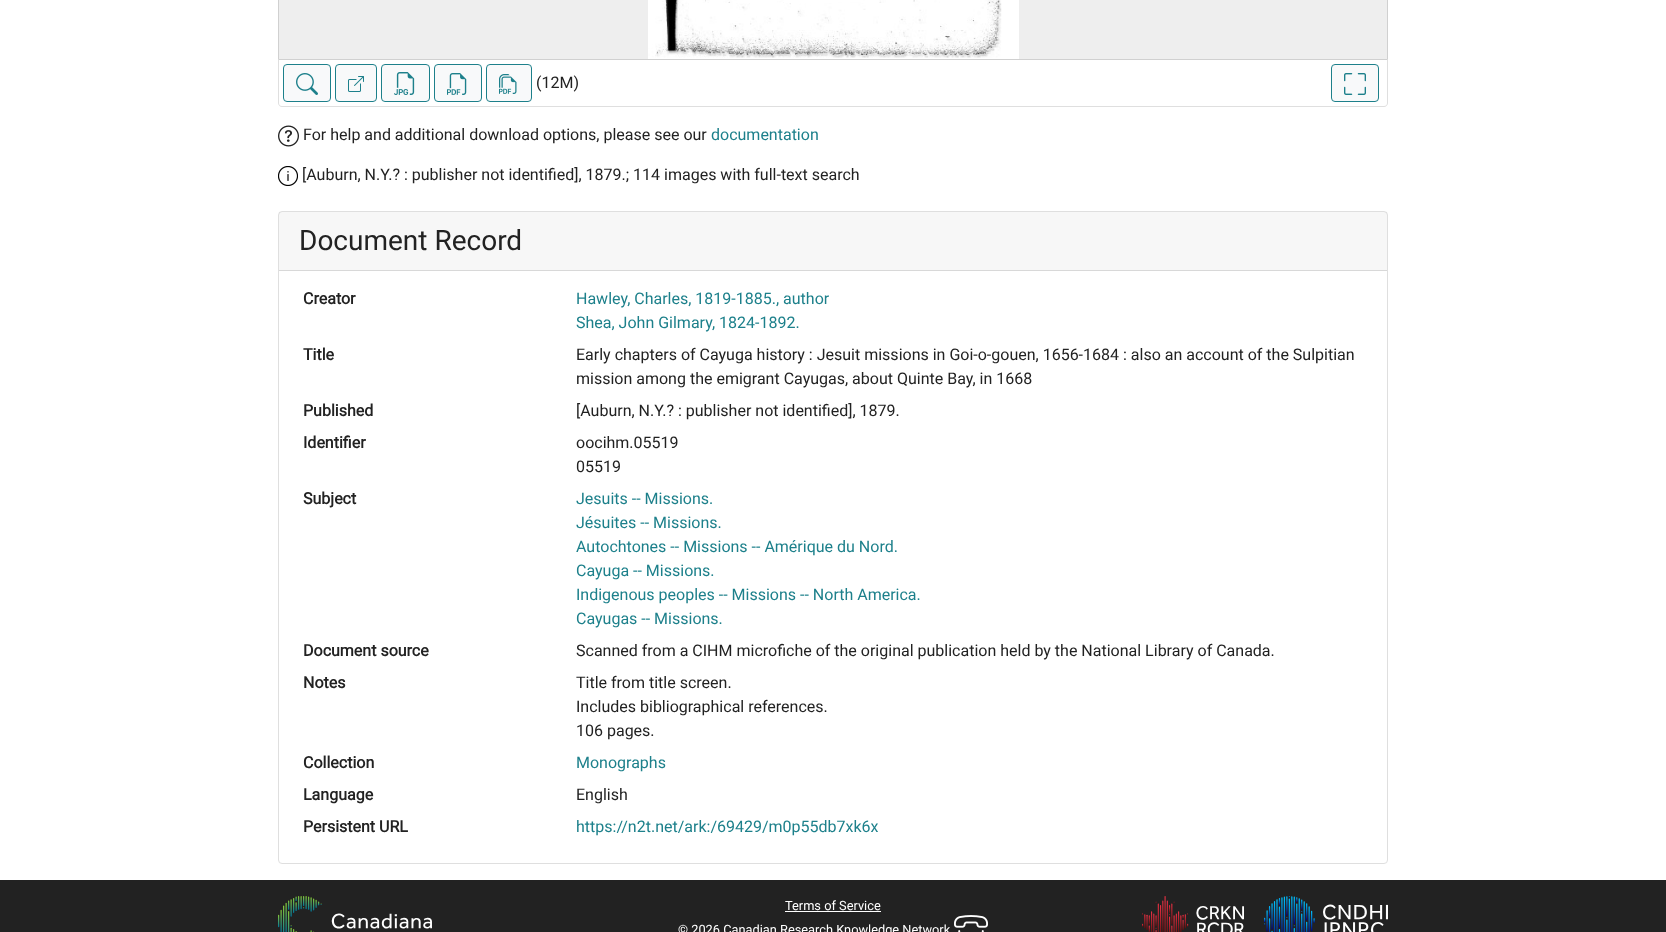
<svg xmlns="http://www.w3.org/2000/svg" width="1666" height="932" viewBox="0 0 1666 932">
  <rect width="100%" height="100%" fill="#fff"/>
  <path d="M278.5 -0.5h1109v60H278.5z" fill="#eee" stroke="#d0d0d0"/>
  <image x="648" y="0" width="371" height="59" href="img/1.png"/>
  <path d="M278 60H1388V103C1388 105 1386 107 1384 107H282C280 107 278 105 278 103ZM279 60H1387V103C1387 105 1386 106 1384 106H282C280 106 279 105 279 103Z" fill="#dfdfdf" fill-rule="evenodd"/>
  <rect x="283.5" y="64.5" width="47" height="37" rx="3.5" fill="#f8f9fa" stroke="#1d808b"/>
  <image x="296" y="73" width="22" height="22" href="img/2.png"/>
  <rect x="335.5" y="64.5" width="41" height="37" rx="3.5" fill="#f8f9fa" stroke="#1d808b"/>
  <image x="348" y="76" width="16" height="16" href="img/3.png"/>
  <rect x="381.5" y="64.5" width="48" height="37" rx="3.5" fill="#f8f9fa" stroke="#1d808b"/>
  <image x="394" y="72" width="21" height="23" href="img/4.png"/>
  <rect x="434.5" y="64.5" width="47" height="37" rx="3.5" fill="#f8f9fa" stroke="#1d808b"/>
  <image x="447" y="73" width="20" height="22" href="img/5.png"/>
  <rect x="486.5" y="64.5" width="45" height="37" rx="3.5" fill="#f8f9fa" stroke="#1d808b"/>
  <image x="499" y="74" width="18" height="20" href="img/6.png"/>
  <rect x="1331.5" y="64.5" width="47" height="37" rx="3.5" fill="#f8f9fa" stroke="#1d808b"/>
  <image x="1344" y="73" width="22" height="22" href="img/7.png"/>
  <image x="278" y="125" width="21" height="22" href="img/8.png"/>
  <image x="278" y="166" width="20" height="20" href="img/9.png"/>
  <rect x="278.5" y="211.5" width="1109" height="652" rx="3.5" fill="none" stroke="#dfdfdf"/>
  <path d="M279 212h1108v58H279z" fill="#00000008"/>
  <path d="M279 270h1108v1H279z" fill="#d8d8d8"/>
  <path d="M0 880h1666v52H0z" fill="#222"/>
  <image x="278" y="896" width="154" height="36" href="img/10.png"/>
  <path d="M785 911h96v1H785z" fill="#fff"/>
  <image x="954" y="915" width="34" height="17" href="img/11.png"/>
  <image x="1142" y="896" width="102" height="36" href="img/12.png"/>
  <image x="1264" y="896" width="124" height="36" href="img/13.png"/>
  <g font-family="Roboto" font-size="16" fill="#222">
    <text x="536" y="88">(12M)</text>
    <text x="303" y="140">For help and additional download options, please see our</text>
  </g>
  <text x="711" y="140" font-family="Roboto" font-size="16" fill="#1d808b">documentation</text>
  <text x="302" y="180" font-family="Roboto" font-size="16" fill="#222">[Auburn, N.Y.? : publisher not identified], 1879.; 114 images with full-text search</text>
  <text x="299" y="250" font-family="Roboto" font-size="28" fill="#222">Document Record</text>
  <text x="303" y="304" font-family="Roboto" font-size="16" font-weight="bold" fill="#222">Creator</text>
  <g font-family="Roboto" font-size="16" fill="#1d808b">
    <text x="576" y="304">Hawley, Charles, 1819-1885., author</text>
    <text x="576" y="328">Shea, John Gilmary, 1824-1892.</text>
  </g>
  <text x="303" y="360" font-family="Roboto" font-size="16" font-weight="bold" fill="#222">Title</text>
  <g font-family="Roboto" font-size="16" fill="#222">
    <text x="576" y="360">Early chapters of Cayuga history : Jesuit missions in Goi-o-gouen, 1656-1684 : also an account of the Sulpitian</text>
    <text x="576" y="384">mission among the emigrant Cayugas, about Quinte Bay, in 1668</text>
  </g>
  <text x="303" y="416" font-family="Roboto" font-size="16" font-weight="bold" fill="#222">Published</text>
  <text x="576" y="416" font-family="Roboto" font-size="16" fill="#222">[Auburn, N.Y.? : publisher not identified], 1879.</text>
  <text x="303" y="448" font-family="Roboto" font-size="16" font-weight="bold" fill="#222">Identifier</text>
  <g font-family="Roboto" font-size="16" fill="#222">
    <text x="576" y="448">oocihm.05519</text>
    <text x="576" y="472">05519</text>
  </g>
  <text x="303" y="504" font-family="Roboto" font-size="16" font-weight="bold" fill="#222">Subject</text>
  <g font-family="Roboto" font-size="16" fill="#1d808b">
    <text x="576" y="504">Jesuits -- Missions.</text>
    <text x="576" y="528">Jésuites -- Missions.</text>
    <text x="576" y="552">Autochtones -- Missions -- Amérique du Nord.</text>
    <text x="576" y="576">Cayuga -- Missions.</text>
    <text x="576" y="600">Indigenous peoples -- Missions -- North America.</text>
    <text x="576" y="624">Cayugas -- Missions.</text>
  </g>
  <text x="303" y="656" font-family="Roboto" font-size="16" font-weight="bold" fill="#222">Document source</text>
  <text x="576" y="656" font-family="Roboto" font-size="16" fill="#222">Scanned from a CIHM microfiche of the original publication held by the National Library of Canada.</text>
  <text x="303" y="688" font-family="Roboto" font-size="16" font-weight="bold" fill="#222">Notes</text>
  <g font-family="Roboto" font-size="16" fill="#222">
    <text x="576" y="688">Title from title screen.</text>
    <text x="576" y="712">Includes bibliographical references.</text>
    <text x="576" y="736">106 pages.</text>
  </g>
  <text x="303" y="768" font-family="Roboto" font-size="16" font-weight="bold" fill="#222">Collection</text>
  <text x="576" y="768" font-family="Roboto" font-size="16" fill="#1d808b">Monographs</text>
  <text x="303" y="800" font-family="Roboto" font-size="16" font-weight="bold" fill="#222">Language</text>
  <text x="576" y="800" font-family="Roboto" font-size="16" fill="#222">English</text>
  <text x="303" y="832" font-family="Roboto" font-size="16" font-weight="bold" fill="#222">Persistent URL</text>
  <text x="576" y="832" font-family="Roboto" font-size="16" fill="#1d808b">https://n2t.net/ark:/69429/m0p55db7xk6x</text>
  <g font-family="Roboto" font-size="12.8" fill="#fff">
    <text x="785" y="910">Terms of Service</text>
    <text x="678" y="934">© 2026 Canadian Research Knowledge Network</text>
  </g>
</svg>
